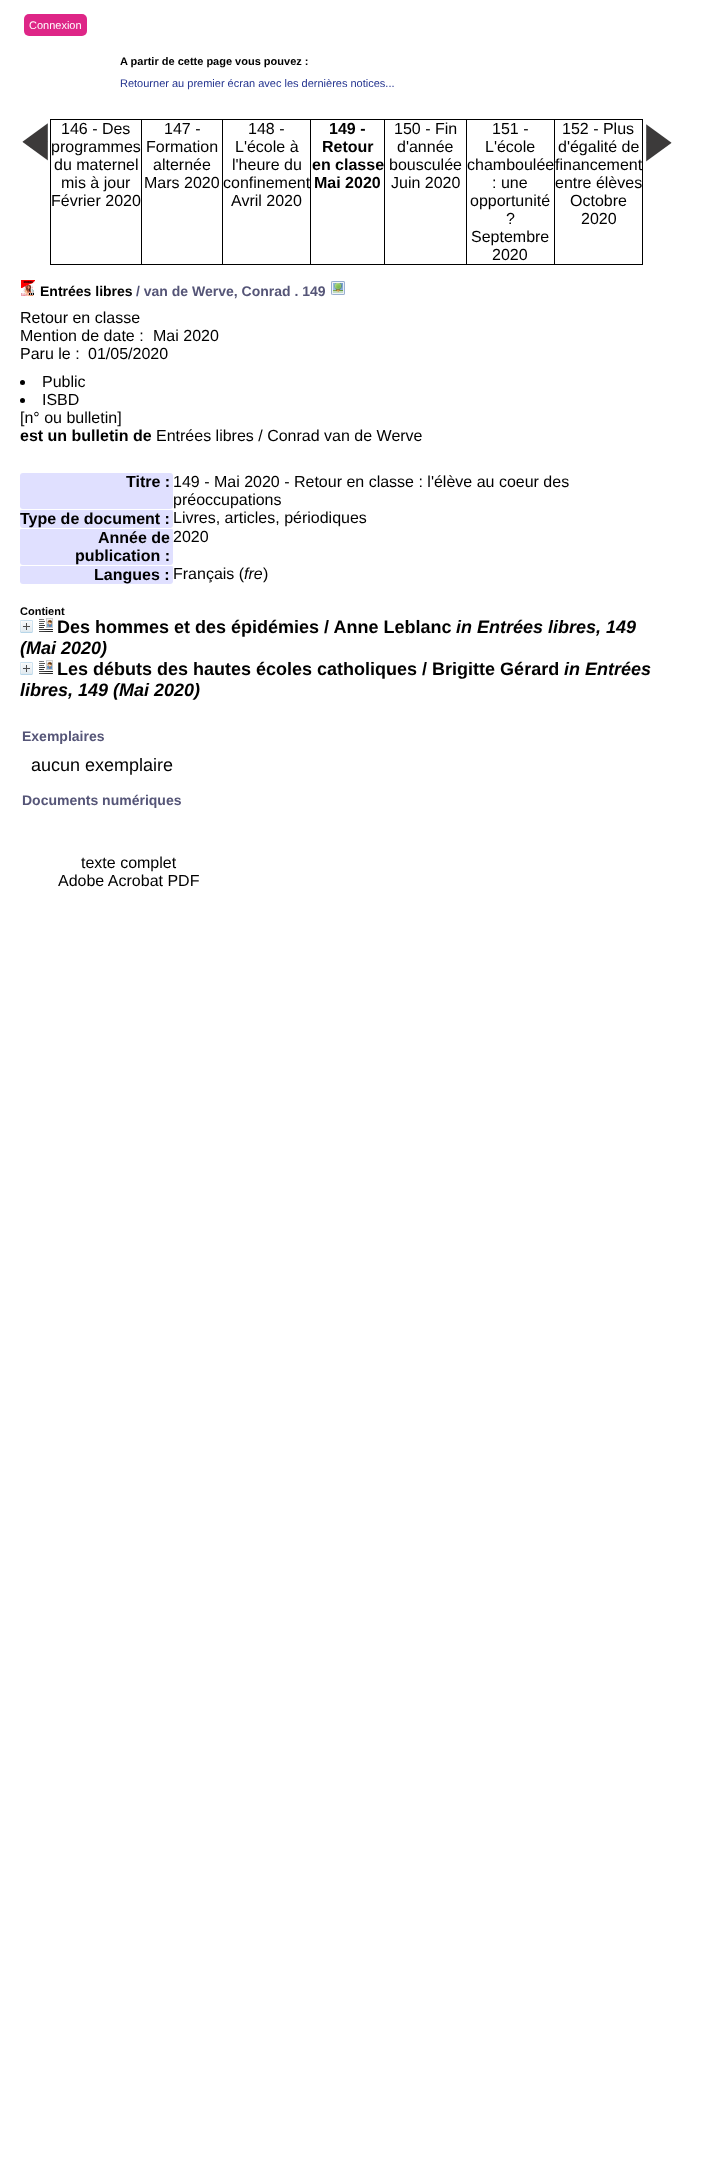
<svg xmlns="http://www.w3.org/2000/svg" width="723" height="2160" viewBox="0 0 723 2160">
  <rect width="100%" height="100%" fill="#fff"/>
  <rect x="24" y="14" width="63" height="22" rx="5" fill="#de2687"/>
  <image x="22" y="123" width="26" height="38" href="img/1.png"/>
  <path d="M554 119h89v1H554z" fill="#000"/>
  <path d="M642 119h1v146H642z" fill="#000"/>
  <path d="M554 264h89v1H554z" fill="#000"/>
  <path d="M554 119h1v146H554z" fill="#000"/>
  <path d="M466 119h89v1H466z" fill="#000"/>
  <path d="M466 264h89v1H466z" fill="#000"/>
  <path d="M466 119h1v146H466z" fill="#000"/>
  <path d="M384 119h83v1H384z" fill="#000"/>
  <path d="M384 264h83v1H384z" fill="#000"/>
  <path d="M384 119h1v146H384z" fill="#000"/>
  <path d="M310 119h75v1H310z" fill="#000"/>
  <path d="M310 264h75v1H310z" fill="#000"/>
  <path d="M310 119h1v146H310z" fill="#000"/>
  <path d="M222 119h89v1H222z" fill="#000"/>
  <path d="M222 264h89v1H222z" fill="#000"/>
  <path d="M222 119h1v146H222z" fill="#000"/>
  <path d="M141 119h82v1H141z" fill="#000"/>
  <path d="M141 264h82v1H141z" fill="#000"/>
  <path d="M141 119h1v146H141z" fill="#000"/>
  <path d="M50 119h92v1H50z" fill="#000"/>
  <path d="M50 264h92v1H50z" fill="#000"/>
  <path d="M50 119h1v146H50z" fill="#000"/>
  <image x="646" y="124" width="26" height="38" href="img/2.png"/>
  <image x="21" y="280" width="14" height="16" href="img/3.png"/>
  <image x="331" y="281" width="14" height="14" href="img/4.png"/>
  <circle cx="22.5" cy="382.5" r="2.5" fill="#000"/>
  <circle cx="22.5" cy="400.5" r="2.5" fill="#000"/>
  <rect x="20" y="473" width="153" height="36" rx="3" fill="#e0e0ff"/>
  <rect x="20" y="509" width="153" height="19" rx="3" fill="#e0e0ff"/>
  <path d="M20 509h154v1H20z" fill="#fff"/>
  <rect x="20" y="528" width="153" height="37" rx="3" fill="#e0e0ff"/>
  <path d="M20 528h154v1H20z" fill="#fff"/>
  <rect x="20" y="565" width="153" height="19" rx="3" fill="#e0e0ff"/>
  <path d="M20 565h154v1H20z" fill="#fff"/>
  <image x="20" y="620" width="13" height="13" href="img/5.png"/>
  <image x="39" y="618" width="14" height="14" href="img/6.png"/>
  <image x="20" y="662" width="13" height="13" href="img/5.png"/>
  <image x="39" y="660" width="14" height="14" href="img/6.png"/>
  <text x="29" y="29" font-family="Liberation Sans" font-size="11" fill="#fff">Connexion</text>
  <text x="120" y="65" font-family="Liberation Sans" font-size="11" font-weight="bold" fill="#000">A partir de cette page vous pouvez :</text>
  <text x="120" y="87" font-family="Liberation Sans" font-size="11" fill="#23338f">Retourner au premier écran avec les dernières notices...</text>
  <g font-family="Liberation Sans" font-size="16" fill="#000">
    <text x="61" y="134">146 - Des</text>
    <text x="51" y="152">programmes</text>
    <text x="54" y="170">du maternel</text>
    <text x="61" y="188">mis à jour</text>
    <text x="51" y="206">Février 2020</text>
    <text x="164" y="134">147 -</text>
    <text x="146" y="152">Formation</text>
    <text x="153" y="170">alternée</text>
    <text x="144" y="188">Mars 2020</text>
    <text x="248" y="134">148 -</text>
    <text x="235" y="152">L'école à</text>
    <text x="232" y="170">l'heure du</text>
    <text x="223" y="188">confinement</text>
    <text x="231" y="206">Avril 2020</text>
  </g>
  <g font-family="Liberation Sans" font-size="16" font-weight="bold" fill="#000">
    <text x="329" y="134">149 -</text>
    <text x="322" y="152">Retour</text>
    <text x="312" y="170">en classe</text>
    <text x="314" y="188">Mai 2020</text>
  </g>
  <g font-family="Liberation Sans" font-size="16" fill="#000">
    <text x="394" y="134">150 - Fin</text>
    <text x="397" y="152">d'année</text>
    <text x="389" y="170">bousculée</text>
    <text x="391" y="188">Juin 2020</text>
    <text x="492" y="134">151 -</text>
    <text x="485" y="152">L'école</text>
    <text x="467" y="170">chamboulée</text>
    <text x="492" y="188">: une</text>
    <text x="470" y="206">opportunité</text>
    <text x="506" y="224">?</text>
    <text x="471" y="242">Septembre</text>
    <text x="492" y="260">2020</text>
    <text x="562" y="134">152 - Plus</text>
    <text x="558" y="152">d'égalité de</text>
    <text x="555" y="170">financement</text>
    <text x="555" y="188">entre élèves</text>
    <text x="570" y="206">Octobre</text>
    <text x="581" y="224">2020</text>
  </g>
  <text x="40" y="296" font-family="Liberation Sans" font-size="14" font-weight="bold" fill="#000">Entrées libres</text>
  <text x="136" y="296" font-family="Liberation Sans" font-size="14" font-weight="bold" fill="#557">/ van de Werve, Conrad . 149</text>
  <g font-family="Liberation Sans" font-size="16" fill="#000">
    <text x="20" y="323">Retour en classe</text>
    <text x="20" y="341">Mention de date :</text>
    <text x="153" y="341">Mai 2020</text>
    <text x="20" y="359">Paru le :</text>
    <text x="88" y="359">01/05/2020</text>
    <text x="42" y="387">Public</text>
    <text x="42" y="405">ISBD</text>
    <text x="20" y="423">[n° ou bulletin]</text>
  </g>
  <text x="20" y="441" font-family="Liberation Sans" font-size="16" font-weight="bold" fill="#000">est un bulletin de</text>
  <text x="156" y="441" font-family="Liberation Sans" font-size="16" fill="#000">Entrées libres / Conrad van de Werve</text>
  <text x="126" y="487" font-family="Liberation Sans" font-size="16" font-weight="bold" fill="#000">Titre :</text>
  <g font-family="Liberation Sans" font-size="16" fill="#000">
    <text x="173" y="487">149 - Mai 2020 - Retour en classe : l'élève au coeur des</text>
    <text x="173" y="505">préoccupations</text>
  </g>
  <text x="20" y="524" font-family="Liberation Sans" font-size="16" font-weight="bold" fill="#000">Type de document :</text>
  <text x="173" y="523" font-family="Liberation Sans" font-size="16" fill="#000">Livres, articles, périodiques</text>
  <g font-family="Liberation Sans" font-size="16" font-weight="bold" fill="#000">
    <text x="98" y="543">Année de</text>
    <text x="75" y="561">publication :</text>
  </g>
  <text x="173" y="542" font-family="Liberation Sans" font-size="16" fill="#000">2020</text>
  <text x="94" y="580" font-family="Liberation Sans" font-size="16" font-weight="bold" fill="#000">Langues :</text>
  <text x="173" y="579" font-family="Liberation Sans" font-size="16" fill="#000">Français (</text>
  <text x="244" y="579" font-family="Liberation Sans" font-size="16" font-style="italic" fill="#000">fre</text>
  <text x="263" y="579" font-family="Liberation Sans" font-size="16" fill="#000">)</text>
  <text x="20" y="615" font-family="Liberation Sans" font-size="11" font-weight="bold" fill="#000">Contient</text>
  <text x="57" y="633" font-family="Liberation Sans" font-size="18" font-weight="bold" fill="#000">Des hommes et des épidémies / Anne Leblanc</text>
  <g font-family="Liberation Sans" font-size="18" font-weight="bold" font-style="italic" fill="#000">
    <text x="456" y="633">in Entrées libres, 149</text>
    <text x="20" y="654">(Mai 2020)</text>
  </g>
  <text x="57" y="675" font-family="Liberation Sans" font-size="18" font-weight="bold" fill="#000">Les débuts des hautes écoles catholiques / Brigitte Gérard</text>
  <g font-family="Liberation Sans" font-size="18" font-weight="bold" font-style="italic" fill="#000">
    <text x="564" y="675">in Entrées</text>
    <text x="20" y="696">libres, 149 (Mai 2020)</text>
  </g>
  <text x="22" y="741" font-family="Liberation Sans" font-size="14" font-weight="bold" fill="#557">Exemplaires</text>
  <text x="31" y="771" font-family="Liberation Sans" font-size="18" fill="#000">aucun exemplaire</text>
  <text x="22" y="805" font-family="Liberation Sans" font-size="14" font-weight="bold" fill="#557">Documents numériques</text>
  <g font-family="Liberation Sans" font-size="16" fill="#000">
    <text x="81" y="868">texte complet</text>
    <text x="58" y="886">Adobe Acrobat PDF</text>
  </g>
</svg>
